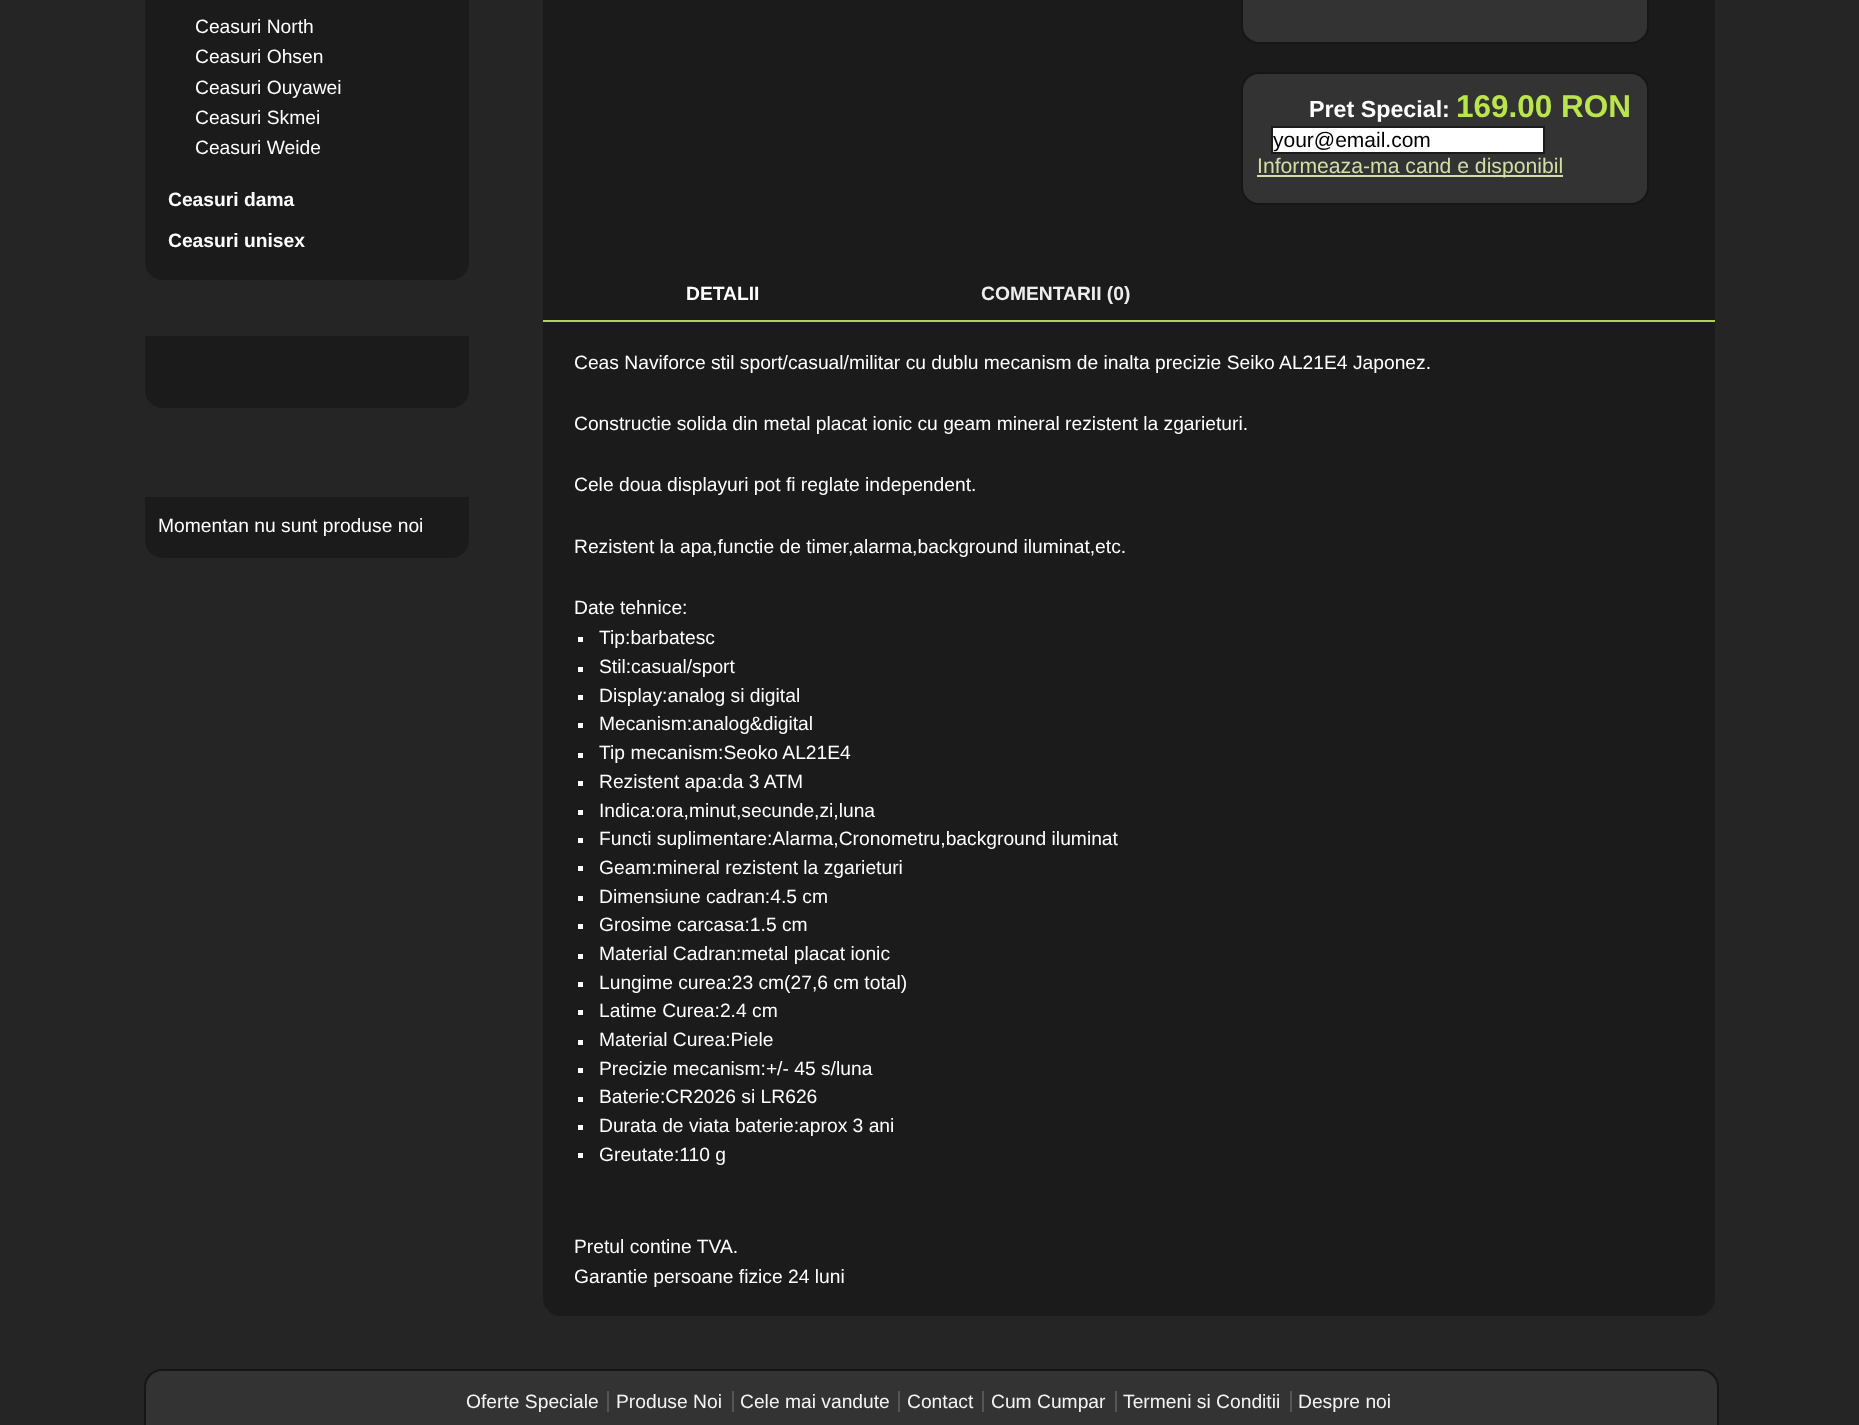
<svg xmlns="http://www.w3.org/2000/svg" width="1859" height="1425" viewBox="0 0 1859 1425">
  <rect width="100%" height="100%" fill="#252525"/>
  <path d="M145-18H469V262C469 272 461 280 451 280H163C153 280 145 272 145 262Z" fill="#1b1b1b"/>
  <path d="M145 336H469V390C469 400 461 408 451 408H163C153 408 145 400 145 390Z" fill="#1b1b1b"/>
  <path d="M145 393h324v1H145z" fill="#1b1b1b"/>
  <path d="M145 497H469V540C469 550 461 558 451 558H163C153 558 145 550 145 540Z" fill="#1b1b1b"/>
  <rect x="543" y="-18" width="1172" height="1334" rx="18" fill="#1b1b1b"/>
  <rect x="1242" y="-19" width="406" height="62" rx="17" fill="#333" stroke="#161616" stroke-width="2"/>
  <rect x="1242" y="73" width="406" height="131" rx="17" fill="#333" stroke="#161616" stroke-width="2"/>
  <path d="M1272 127h272v26H1272z" fill="#fff" stroke="#1b1b1b" stroke-width="2"/>
  <path d="M1257 175h306v2H1257z" fill="#cfdfa5"/>
  <path d="M543 320h1172v2H543z" fill="#afd255"/>
  <path d="M578 637h5v5H578z" fill="#fff"/>
  <path d="M578 667h5v5H578z" fill="#fff"/>
  <path d="M578 695h5v5H578z" fill="#fff"/>
  <path d="M578 723h5v5H578z" fill="#fff"/>
  <path d="M578 753h5v5H578z" fill="#fff"/>
  <path d="M578 781h5v5H578z" fill="#fff"/>
  <path d="M578 810h5v5H578z" fill="#fff"/>
  <path d="M578 838h5v5H578z" fill="#fff"/>
  <path d="M578 866h5v5H578z" fill="#fff"/>
  <path d="M578 896h5v5H578z" fill="#fff"/>
  <path d="M578 924h5v5H578z" fill="#fff"/>
  <path d="M578 954h5v5H578z" fill="#fff"/>
  <path d="M578 982h5v5H578z" fill="#fff"/>
  <path d="M578 1010h5v5H578z" fill="#fff"/>
  <path d="M578 1040h5v5H578z" fill="#fff"/>
  <path d="M578 1068h5v5H578z" fill="#fff"/>
  <path d="M578 1097h5v5H578z" fill="#fff"/>
  <path d="M578 1125h5v5H578z" fill="#fff"/>
  <path d="M578 1153h5v5H578z" fill="#fff"/>
  <rect x="145" y="1370" width="1573" height="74" rx="17" fill="#333" stroke="#161616" stroke-width="2"/>
  <path d="M607 1391h2v21H607z" fill="#555"/>
  <path d="M732 1391h2v21H732z" fill="#555"/>
  <path d="M898 1391h2v21H898z" fill="#555"/>
  <path d="M982 1391h2v21H982z" fill="#555"/>
  <path d="M1115 1391h2v21H1115z" fill="#555"/>
  <path d="M1290 1391h2v21H1290z" fill="#555"/>
  <g font-family="Liberation Sans" font-size="19.25" fill="#fff">
    <text x="195" y="33">Ceasuri North</text>
    <text x="195" y="63">Ceasuri Ohsen</text>
    <text x="195" y="94">Ceasuri Ouyawei</text>
    <text x="195" y="124">Ceasuri Skmei</text>
    <text x="195" y="154">Ceasuri Weide</text>
  </g>
  <g font-family="Liberation Sans" font-size="19.25" font-weight="bold" fill="#fff">
    <text x="168" y="206">Ceasuri dama</text>
    <text x="168" y="247">Ceasuri unisex</text>
  </g>
  <text x="158" y="532" font-family="Liberation Sans" font-size="19.25" fill="#fff">Momentan nu sunt produse noi</text>
  <text x="1309" y="117" font-family="Liberation Sans" font-size="23.25" font-weight="bold" fill="#fff">Pret Special:</text>
  <text x="1456" y="117" font-family="Liberation Sans" font-size="31.5" font-weight="bold" fill="#bae54b">169.00 RON</text>
  <text x="1273" y="147" font-family="Liberation Sans" font-size="21" fill="#000">your@email.com</text>
  <text x="1257" y="173" font-family="Liberation Sans" font-size="21.2" fill="#cfdfa5">Informeaza-ma cand e disponibil</text>
  <text x="686" y="300" font-family="Liberation Sans" font-size="19.25" font-weight="bold" fill="#fff">DETALII</text>
  <text x="981" y="300" font-family="Liberation Sans" font-size="19.25" font-weight="bold" fill="#eee">COMENTARII (0)</text>
  <g font-family="Liberation Sans" font-size="19.25" fill="#fff">
    <text x="574" y="369">Ceas Naviforce stil sport/casual/militar cu dublu mecanism de inalta precizie Seiko AL21E4 Japonez.</text>
    <text x="574" y="430">Constructie solida din metal placat ionic cu geam mineral rezistent la zgarieturi.</text>
    <text x="574" y="491">Cele doua displayuri pot fi reglate independent.</text>
    <text x="574" y="553">Rezistent la apa,functie de timer,alarma,background iluminat,etc.</text>
    <text x="574" y="614">Date tehnice:</text>
    <text x="599" y="644">Tip:barbatesc</text>
    <text x="599" y="673">Stil:casual/sport</text>
    <text x="599" y="702">Display:analog si digital</text>
    <text x="599" y="730">Mecanism:analog&amp;digital</text>
    <text x="599" y="759">Tip mecanism:Seoko AL21E4</text>
    <text x="599" y="788">Rezistent apa:da 3 ATM</text>
    <text x="599" y="817">Indica:ora,minut,secunde,zi,luna</text>
    <text x="599" y="845">Functi suplimentare:Alarma,Cronometru,background iluminat</text>
    <text x="599" y="874">Geam:mineral rezistent la zgarieturi</text>
    <text x="599" y="903">Dimensiune cadran:4.5 cm</text>
    <text x="599" y="931">Grosime carcasa:1.5 cm</text>
    <text x="599" y="960">Material Cadran:metal placat ionic</text>
    <text x="599" y="989">Lungime curea:23 cm(27,6 cm total)</text>
    <text x="599" y="1017">Latime Curea:2.4 cm</text>
    <text x="599" y="1046">Material Curea:Piele</text>
    <text x="599" y="1075">Precizie mecanism:+/- 45 s/luna</text>
    <text x="599" y="1103">Baterie:CR2026 si LR626</text>
    <text x="599" y="1132">Durata de viata baterie:aprox 3 ani</text>
    <text x="599" y="1161">Greutate:110 g</text>
    <text x="574" y="1253">Pretul contine TVA.</text>
    <text x="574" y="1283">Garantie persoane fizice 24 luni</text>
  </g>
  <g font-family="Liberation Sans" font-size="19.25" fill="#f4f4f4">
    <text x="466" y="1408">Oferte Speciale</text>
    <text x="616" y="1408">Produse Noi</text>
    <text x="740" y="1408">Cele mai vandute</text>
    <text x="907" y="1408">Contact</text>
    <text x="991" y="1408">Cum Cumpar</text>
    <text x="1123" y="1408">Termeni si Conditii</text>
    <text x="1298" y="1408">Despre noi</text>
  </g>
</svg>
